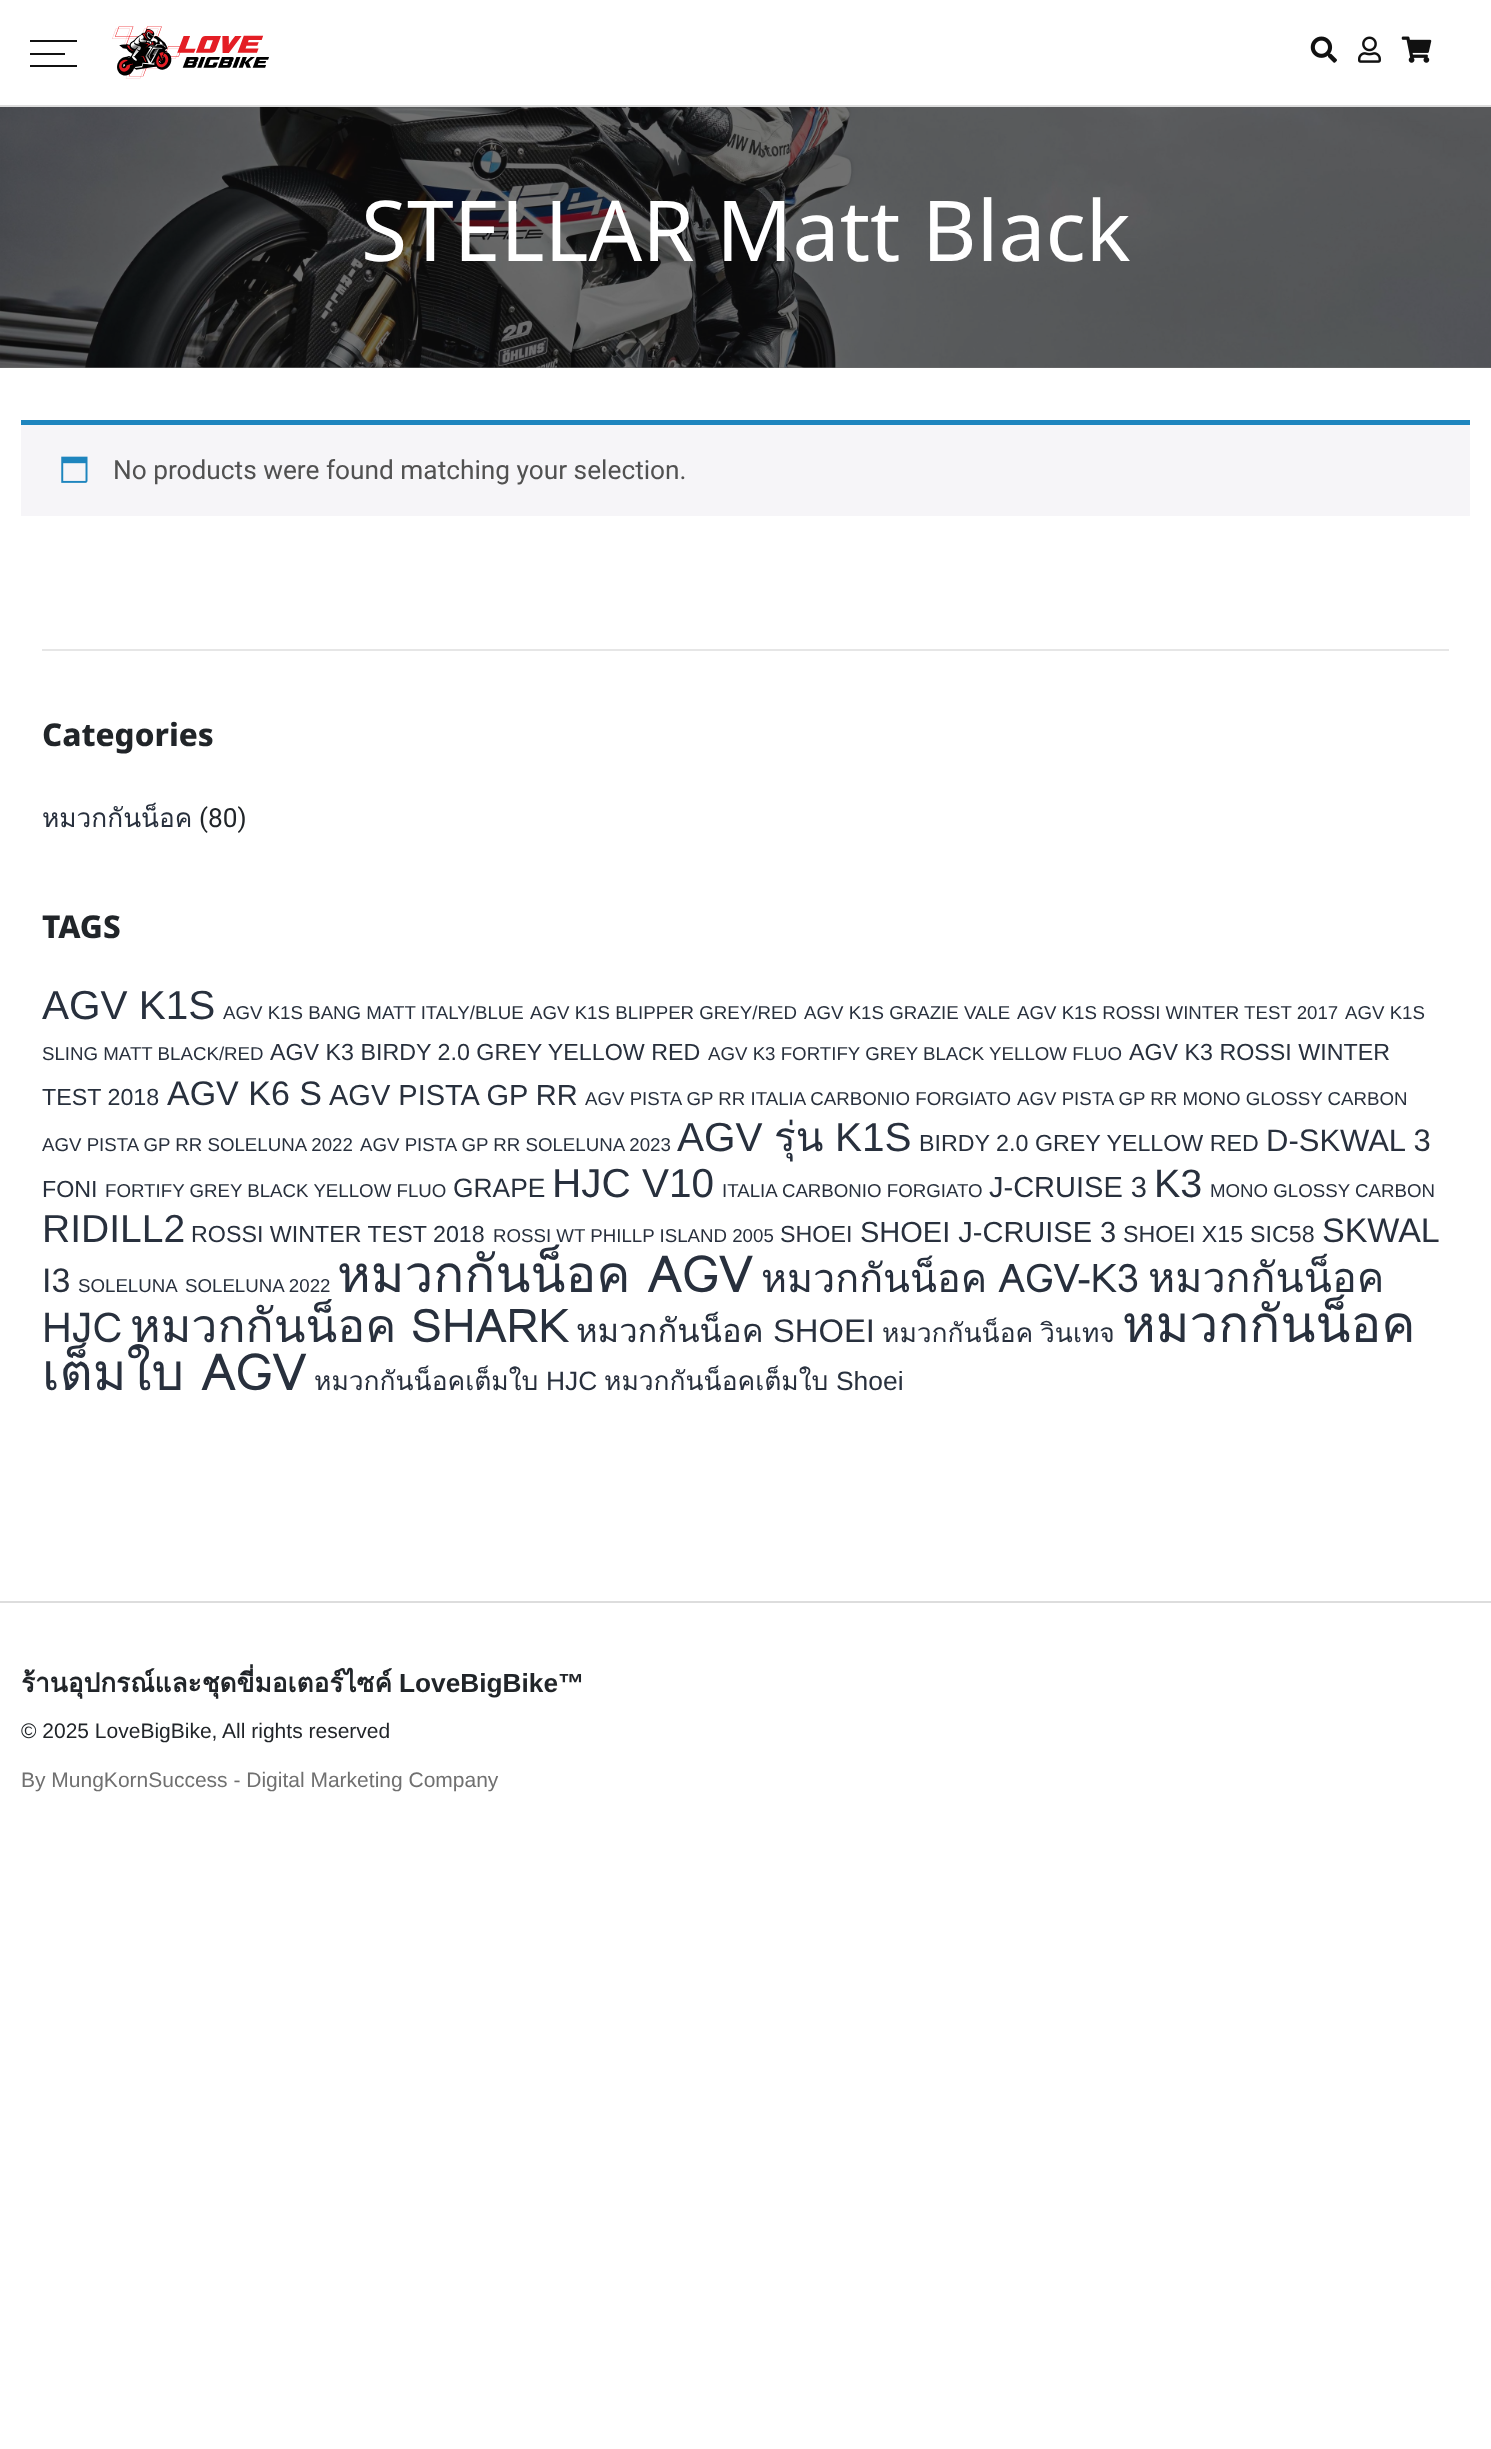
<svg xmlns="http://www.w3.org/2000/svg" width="1491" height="2449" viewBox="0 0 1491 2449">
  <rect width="100%" height="100%" fill="#fff"/>
  <path d="M0 367h1491v1H0z" fill="#707070"/>
  <path d="M0 105h1491v2H0z" fill="#ddd"/>
  <path d="M30 53h35v2H30z" fill="#111"/>
  <path d="M30 40h47v2H30z" fill="#111"/>
  <path d="M30 65h47v2H30z" fill="#111"/>
  <image x="112" y="26" width="157" height="53" href="img/1.png"/>
  <image x="1310" y="36" width="27" height="27" href="img/2.png"/>
  <image x="1358" y="36" width="23" height="27" href="img/3.png"/>
  <image x="1401" y="36" width="31" height="27" href="img/4.png"/>
  <image x="0" y="107" width="1491" height="261" href="img/5.png"/>
  <path d="M21 425h1449v91H21z" fill="#f6f5f8"/>
  <path d="M21 420h1449v5H21z" fill="#1e85be"/>
  <image x="61" y="456" width="27" height="27" href="img/6.png"/>
  <path d="M42 649h1407v2H42z" fill="#e6e6e6"/>
  <path d="M0 1601h1491v2H0z" fill="#ddd"/>
  <text x="361" y="261" font-family="Noto Sans Thai" font-size="84" fill="#fff">STELLAR Matt Black</text>
  <text x="113" y="479" font-family="Roboto" font-size="26.25" fill="#515151">No products were found matching your selection.</text>
  <text x="42" y="746" font-family="Noto Sans Thai" font-size="31.5" font-weight="800" fill="#212529">Categories</text>
  <text x="42" y="827" font-family="Loma" font-size="26.25" fill="#28303d">หมวกกันน็อค</text>
  <text x="199" y="827" font-family="Roboto" font-size="26.25" fill="#212529">(80)</text>
  <text x="42" y="938" font-family="Noto Sans Thai" font-size="31.5" font-weight="800" fill="#212529">TAGS</text>
  <text x="42" y="1019" font-family="Liberation Sans" font-size="40.5" fill="#28303d">AGV K1S</text>
  <g font-family="Liberation Sans" font-size="18.7" fill="#28303d">
    <text x="223" y="1019">AGV K1S BANG MATT ITALY/BLUE</text>
    <text x="530" y="1019">AGV K1S BLIPPER GREY/RED</text>
    <text x="804" y="1019">AGV K1S GRAZIE VALE</text>
    <text x="1017" y="1019">AGV K1S ROSSI WINTER TEST 2017</text>
    <text x="1345" y="1019">AGV K1S</text>
    <text x="42" y="1060">SLING MATT BLACK/RED</text>
  </g>
  <text x="270" y="1060" font-family="Liberation Sans" font-size="23.25" fill="#28303d">AGV K3 BIRDY 2.0 GREY YELLOW RED</text>
  <text x="708" y="1060" font-family="Liberation Sans" font-size="18.7" fill="#28303d">AGV K3 FORTIFY GREY BLACK YELLOW FLUO</text>
  <g font-family="Liberation Sans" font-size="23.25" fill="#28303d">
    <text x="1129" y="1060">AGV K3 ROSSI WINTER</text>
    <text x="42" y="1105">TEST 2018</text>
  </g>
  <text x="167" y="1105" font-family="Liberation Sans" font-size="34" fill="#28303d">AGV K6 S</text>
  <text x="329" y="1105" font-family="Liberation Sans" font-size="29" fill="#28303d">AGV PISTA GP RR</text>
  <g font-family="Liberation Sans" font-size="18.7" fill="#28303d">
    <text x="585" y="1105">AGV PISTA GP RR ITALIA CARBONIO FORGIATO</text>
    <text x="1017" y="1105">AGV PISTA GP RR MONO GLOSSY CARBON</text>
    <text x="42" y="1151">AGV PISTA GP RR SOLELUNA 2022</text>
    <text x="360" y="1151">AGV PISTA GP RR SOLELUNA 2023</text>
  </g>
  <text x="677" y="1151" font-family="Liberation Sans" font-size="40.5" fill="#28303d">AGV</text>
  <text x="774" y="1151" font-family="Loma" font-size="40.5" fill="#28303d">รุ่น</text>
  <text x="835" y="1151" font-family="Liberation Sans" font-size="40.5" fill="#28303d">K1S</text>
  <text x="919" y="1151" font-family="Liberation Sans" font-size="23.25" fill="#28303d">BIRDY 2.0 GREY YELLOW RED</text>
  <text x="1266" y="1151" font-family="Liberation Sans" font-size="31" fill="#28303d">D-SKWAL 3</text>
  <text x="42" y="1197" font-family="Liberation Sans" font-size="23.25" fill="#28303d">FONI</text>
  <text x="105" y="1197" font-family="Liberation Sans" font-size="18.7" fill="#28303d">FORTIFY GREY BLACK YELLOW FLUO</text>
  <text x="453" y="1197" font-family="Liberation Sans" font-size="26.4" fill="#28303d">GRAPE</text>
  <text x="552" y="1197" font-family="Liberation Sans" font-size="40.5" fill="#28303d">HJC V10</text>
  <text x="722" y="1197" font-family="Liberation Sans" font-size="18.7" fill="#28303d">ITALIA CARBONIO FORGIATO</text>
  <text x="989" y="1197" font-family="Liberation Sans" font-size="29" fill="#28303d">J-CRUISE 3</text>
  <text x="1154" y="1197" font-family="Liberation Sans" font-size="39.5" fill="#28303d">K3</text>
  <text x="1210" y="1197" font-family="Liberation Sans" font-size="18.7" fill="#28303d">MONO GLOSSY CARBON</text>
  <text x="42" y="1242" font-family="Liberation Sans" font-size="39" fill="#28303d">RIDILL2</text>
  <text x="191" y="1242" font-family="Liberation Sans" font-size="23.25" fill="#28303d">ROSSI WINTER TEST 2018</text>
  <text x="493" y="1242" font-family="Liberation Sans" font-size="18.7" fill="#28303d">ROSSI WT PHILLP ISLAND 2005</text>
  <text x="780" y="1242" font-family="Liberation Sans" font-size="23.25" fill="#28303d">SHOEI</text>
  <text x="860" y="1242" font-family="Liberation Sans" font-size="29" fill="#28303d">SHOEI J-CRUISE 3</text>
  <g font-family="Liberation Sans" font-size="23.25" fill="#28303d">
    <text x="1123" y="1242">SHOEI X15</text>
    <text x="1250" y="1242">SIC58</text>
  </g>
  <g font-family="Liberation Sans" font-size="34" fill="#28303d">
    <text x="1322" y="1242">SKWAL</text>
    <text x="42" y="1292">I3</text>
  </g>
  <g font-family="Liberation Sans" font-size="18.7" fill="#28303d">
    <text x="78" y="1292">SOLELUNA</text>
    <text x="185" y="1292">SOLELUNA 2022</text>
  </g>
  <text x="337" y="1292" font-family="Loma" font-size="51.25" fill="#28303d">หมวกกันน็อค AGV</text>
  <text x="761" y="1292" word-spacing="-2" font-family="Loma" font-size="39.5" fill="#28303d">หมวกกันน็อค AGV-K3</text>
  <g font-family="Loma" font-size="41.25" fill="#28303d">
    <text x="1148" y="1292">หมวกกันน็อค</text>
    <text x="42" y="1342">HJC</text>
  </g>
  <text x="130" y="1342" word-spacing="-1" font-family="Loma" font-size="46.5" fill="#28303d">หมวกกันน็อค SHARK</text>
  <text x="576" y="1342" font-family="Loma" font-size="32.75" fill="#28303d">หมวกกันน็อค</text>
  <text x="773" y="1342" font-family="Liberation Sans" font-size="32.75" fill="#28303d">SHOEI</text>
  <text x="882" y="1342" word-spacing="-2" font-family="Loma" font-size="26.4" fill="#28303d">หมวกกันน็อค วินเทจ</text>
  <g font-family="Loma" font-size="51.25" fill="#28303d">
    <text x="1122" y="1342">หมวกกันน็อค</text>
    <text x="42" y="1390">เต็มใบ AGV</text>
  </g>
  <text x="314" y="1390" font-family="Loma" font-size="26.4" fill="#28303d">หมวกกันน็อคเต็มใบ</text>
  <text x="546" y="1390" font-family="Liberation Sans" font-size="26.4" fill="#28303d">HJC</text>
  <text x="604" y="1390" font-family="Loma" font-size="26.4" fill="#28303d">หมวกกันน็อคเต็มใบ</text>
  <text x="836" y="1390" font-family="Liberation Sans" font-size="26.4" fill="#28303d">Shoei</text>
  <text x="21" y="1692" font-family="Loma" font-size="26.25" font-weight="bold" fill="#212529">ร้านอุปกรณ์และชุดขี่มอเตอร์ไซค์</text>
  <text x="399" y="1692" font-family="Liberation Sans" font-size="26.25" font-weight="bold" fill="#212529">LoveBigBike™</text>
  <text x="21" y="1738" font-family="Liberation Sans" font-size="21" fill="#212529">© 2025 LoveBigBike, All rights reserved</text>
  <text x="21" y="1787" font-family="Liberation Sans" font-size="21" fill="#707070">By MungKornSuccess - Digital Marketing Company</text>
</svg>
